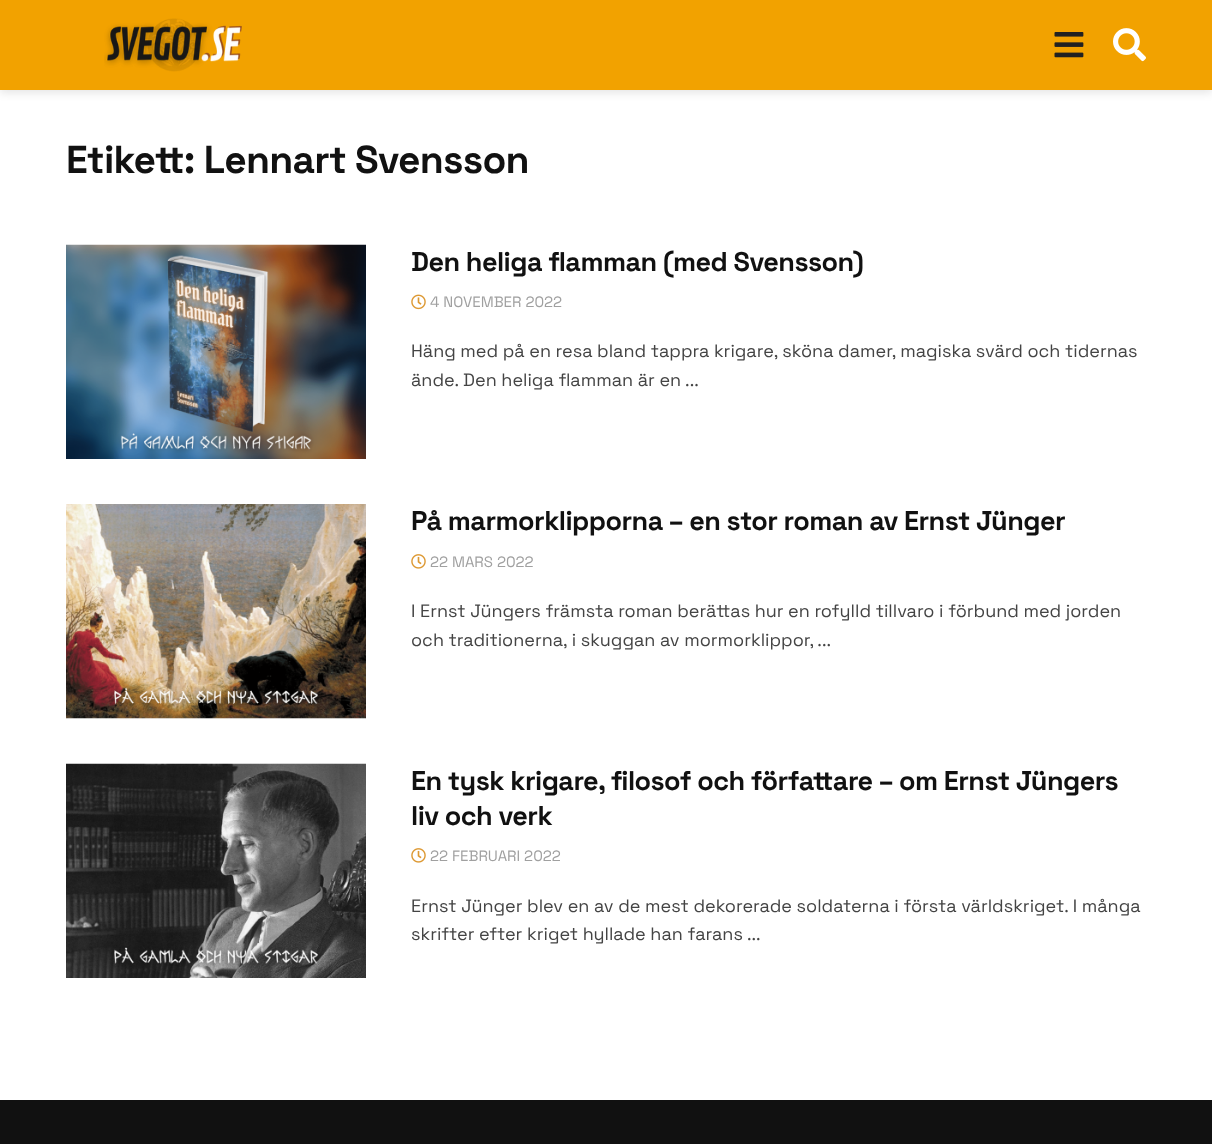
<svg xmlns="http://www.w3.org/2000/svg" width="1212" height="1144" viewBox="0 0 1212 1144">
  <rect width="100%" height="100%" fill="#fff"/>
  <path d="M0 3h1212v90H0z" fill="#0000001a" filter="blur(4.5px)"/>
  <path d="M0 0h1212v90H0z" fill="#f2a200"/>
  <image x="104" y="18" width="138" height="54" href="img/1.png"/>
  <image x="1054" y="32" width="30" height="26" href="img/2.png"/>
  <image x="1113" y="28" width="33" height="34" href="img/3.png"/>
  <image x="273" y="244" width="60" height="1" href="img/5.png"/>
  <image x="66" y="244" width="300" height="215" href="img/4.png"/>
  <image x="411" y="294" width="15" height="16" href="img/6.png"/>
  <path d="M66 718h300v1H66z" fill="#f7f7f7"/>
  <image x="66" y="504" width="300" height="215" href="img/7.png"/>
  <image x="411" y="554" width="15" height="15" href="img/8.png"/>
  <image x="273" y="763" width="60" height="1" href="img/5.png"/>
  <image x="66" y="763" width="300" height="215" href="img/9.png"/>
  <image x="411" y="848" width="15" height="15" href="img/8.png"/>
  <path d="M0 1100h1212v44H0z" fill="#111"/>
  <text x="66" y="173" font-family="Space Grotesk" font-size="39" font-weight="bold" letter-spacing="-0.75" fill="#111">Etikett: Lennart Svensson</text>
  <text x="411" y="271" font-family="Space Grotesk" font-size="27" font-weight="bold" letter-spacing="-0.55" fill="#111">Den heliga flamman (med Svensson)</text>
  <text x="430" y="307" font-family="Space Grotesk" font-size="15" fill="#a0a0a0">4 NOVEMBER 2022</text>
  <g font-family="Space Grotesk" font-size="18" fill="#444">
    <text x="411" y="357">Häng med på en resa bland tappra krigare, sköna damer, magiska svärd och tidernas</text>
    <text x="411" y="386">ände. Den heliga flamman är en ...</text>
  </g>
  <text x="411" y="530" font-family="Space Grotesk" font-size="27" font-weight="bold" letter-spacing="-0.55" fill="#111">På marmorklipporna – en stor roman av Ernst Jünger</text>
  <text x="430" y="567" font-family="Space Grotesk" font-size="15" fill="#a0a0a0">22 MARS 2022</text>
  <g font-family="Space Grotesk" font-size="18" fill="#444">
    <text x="411" y="617">I Ernst Jüngers främsta roman berättas hur en rofylld tillvaro i förbund med jorden</text>
    <text x="411" y="646">och traditionerna, i skuggan av mormorklippor, ...</text>
  </g>
  <g font-family="Space Grotesk" font-size="27" font-weight="bold" letter-spacing="-0.55" fill="#111">
    <text x="411" y="790">En tysk krigare, filosof och författare – om Ernst Jüngers</text>
    <text x="411" y="825">liv och verk</text>
  </g>
  <text x="430" y="861" font-family="Space Grotesk" font-size="15" fill="#a0a0a0">22 FEBRUARI 2022</text>
  <g font-family="Space Grotesk" font-size="18" fill="#444">
    <text x="411" y="912">Ernst Jünger blev en av de mest dekorerade soldaterna i första världskriget. I många</text>
    <text x="411" y="940">skrifter efter kriget hyllade han farans ...</text>
  </g>
</svg>
